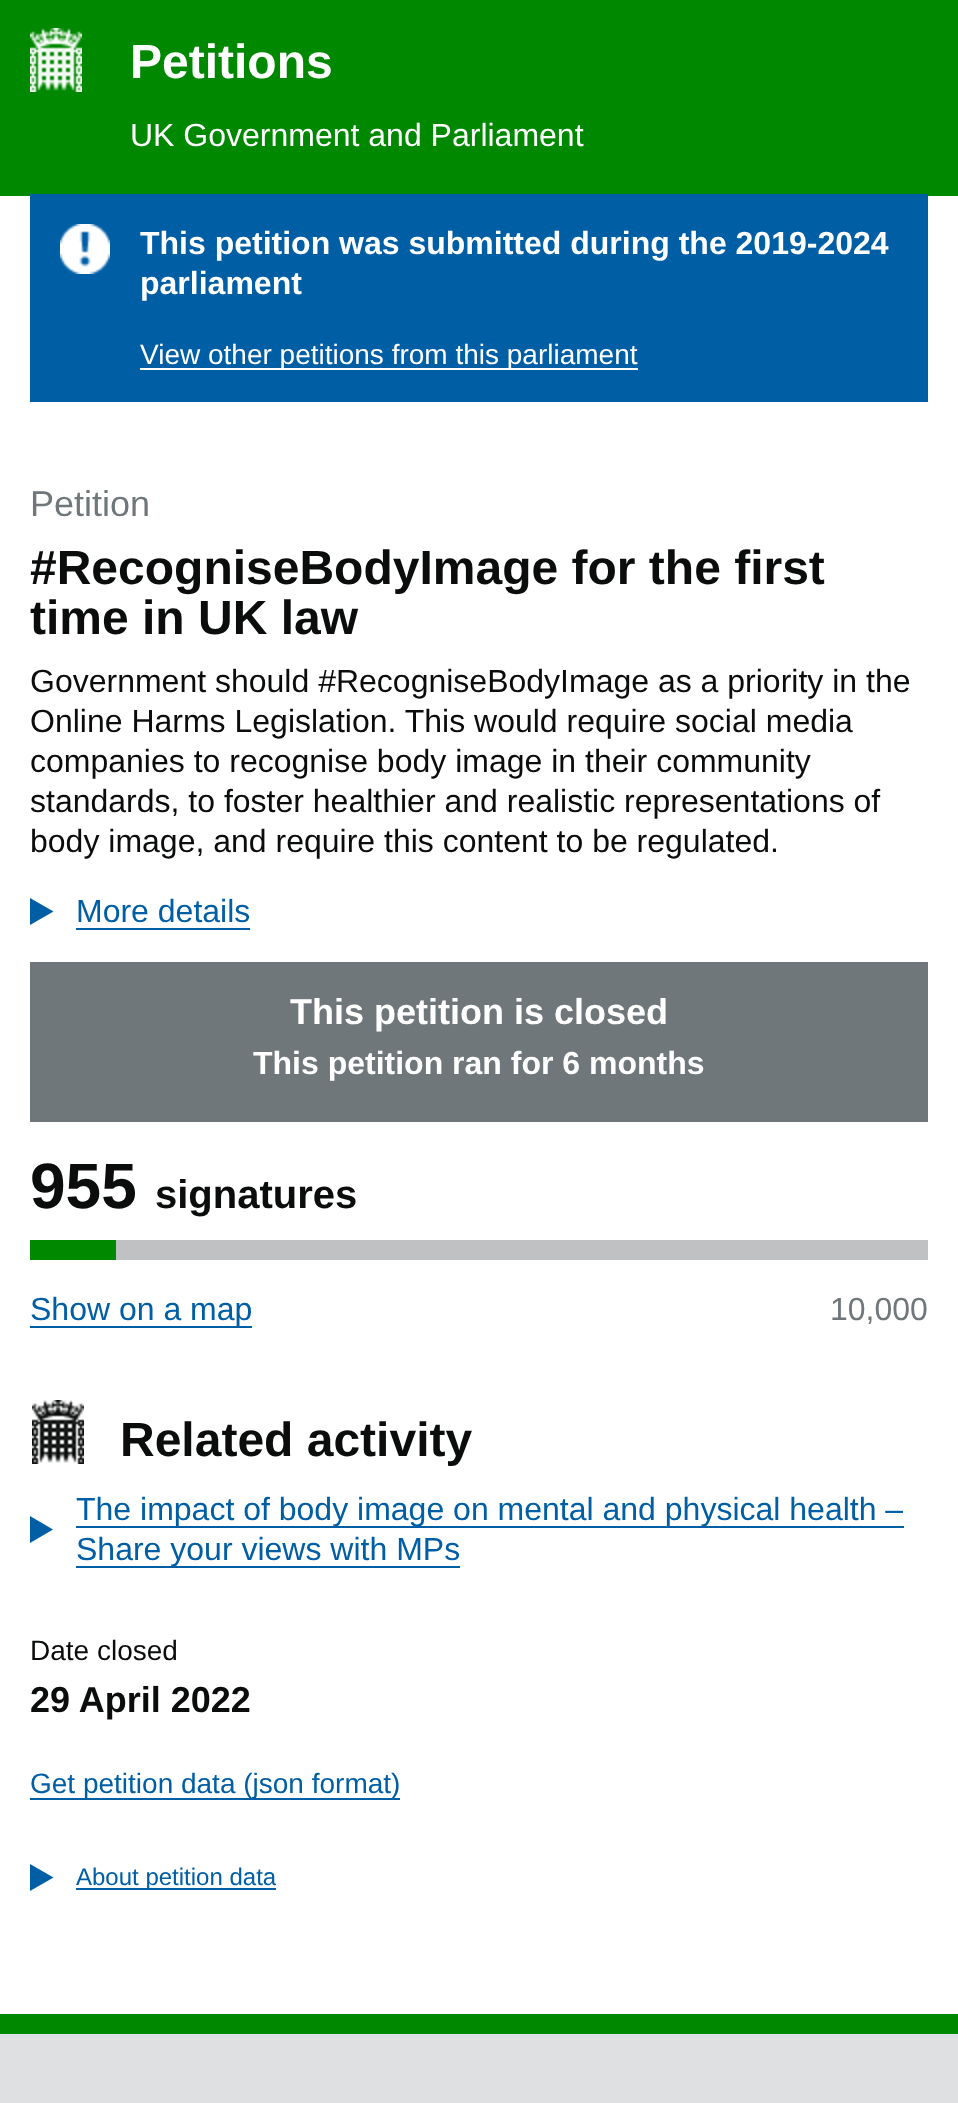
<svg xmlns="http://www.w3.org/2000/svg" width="958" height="2103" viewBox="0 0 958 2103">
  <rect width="100%" height="100%" fill="#fff"/>
  <path d="M0 0h958v196H0z" fill="#080"/>
  <image x="30" y="28" width="52" height="64" href="img/1.png"/>
  <path d="M30 194h898v208H30z" fill="#005ea5"/>
  <image x="60" y="224" width="50" height="50" href="img/2.png"/>
  <path d="M140 368h498v2H140z" fill="#fff"/>
  <path d="M30 898V925L53.5 911.5Z" fill="#005ea5"/>
  <path d="M76 928h174v2H76z" fill="#005ea5"/>
  <path d="M30 962h898v160H30z" fill="#6f777b"/>
  <path d="M116 1240h812v20H116z" fill="#bfc1c3"/>
  <path d="M30 1240h86v20H30z" fill="#080"/>
  <path d="M30 1326h222v2H30z" fill="#005ea5"/>
  <image x="32" y="1400" width="52" height="64" href="img/3.png"/>
  <path d="M30 1516V1543L53 1529.5Z" fill="#005ea5"/>
  <path d="M76 1526h828v2H76z" fill="#005ea5"/>
  <path d="M76 1566h384v2H76z" fill="#005ea5"/>
  <path d="M30 1798h370v2H30z" fill="#005ea5"/>
  <path d="M30 1864V1891L53.5 1877.5Z" fill="#005ea5"/>
  <path d="M76 1888h200v2H76z" fill="#005ea5"/>
  <path d="M0 2034h958v69H0z" fill="#dee0e2"/>
  <path d="M0 2014h958v20H0z" fill="#080"/>
  <text x="130" y="78" font-family="Liberation Sans" font-size="48" font-weight="bold" fill="#fff">Petitions</text>
  <text x="130" y="146" font-family="Liberation Sans" font-size="32" fill="#fff">UK Government and Parliament</text>
  <g font-family="Liberation Sans" font-size="32" font-weight="bold" fill="#fff">
    <text x="140" y="254">This petition was submitted during the 2019-2024</text>
    <text x="140" y="294">parliament</text>
  </g>
  <text x="140" y="364" font-family="Liberation Sans" font-size="28" fill="#fff">View other petitions from this parliament</text>
  <text x="30" y="516" font-family="Liberation Sans" font-size="36" fill="#6f777b">Petition</text>
  <g font-family="Liberation Sans" font-size="48" font-weight="bold" fill="#0b0c0c">
    <text x="30" y="584">#RecogniseBodyImage for the first</text>
    <text x="30" y="634">time in UK law</text>
  </g>
  <g font-family="Liberation Sans" font-size="32" fill="#0b0c0c">
    <text x="30" y="692">Government should #RecogniseBodyImage as a priority in the</text>
    <text x="30" y="732">Online Harms Legislation. This would require social media</text>
    <text x="30" y="772">companies to recognise body image in their community</text>
    <text x="30" y="812">standards, to foster healthier and realistic representations of</text>
    <text x="30" y="852">body image, and require this content to be regulated.</text>
  </g>
  <text x="76" y="922" font-family="Liberation Sans" font-size="32" fill="#005ea5">More details</text>
  <text x="290" y="1024" font-family="Liberation Sans" font-size="36" font-weight="bold" fill="#fff">This petition is closed</text>
  <text x="253" y="1074" font-family="Liberation Sans" font-size="32" font-weight="bold" fill="#fff">This petition ran for 6 months</text>
  <text x="30" y="1208" font-family="Liberation Sans" font-size="64" font-weight="bold" fill="#0b0c0c">955</text>
  <text x="155" y="1208" font-family="Liberation Sans" font-size="40" font-weight="bold" fill="#0b0c0c">signatures</text>
  <text x="30" y="1320" font-family="Liberation Sans" font-size="32" fill="#005ea5">Show on a map</text>
  <text x="830" y="1320" font-family="Liberation Sans" font-size="32" fill="#6f777b">10,000</text>
  <text x="120" y="1456" font-family="Liberation Sans" font-size="48" font-weight="bold" fill="#0b0c0c">Related activity</text>
  <g font-family="Liberation Sans" font-size="32" fill="#005ea5">
    <text x="76" y="1520">The impact of body image on mental and physical health –</text>
    <text x="76" y="1560">Share your views with MPs</text>
  </g>
  <text x="30" y="1660" font-family="Liberation Sans" font-size="28" fill="#0b0c0c">Date closed</text>
  <text x="30" y="1712" font-family="Liberation Sans" font-size="36" font-weight="bold" fill="#0b0c0c">29 April 2022</text>
  <text x="30" y="1793" font-family="Liberation Sans" font-size="28" fill="#005ea5">Get petition data (json format)</text>
  <text x="76" y="1885" font-family="Liberation Sans" font-size="24" fill="#005ea5">About petition data</text>
</svg>
